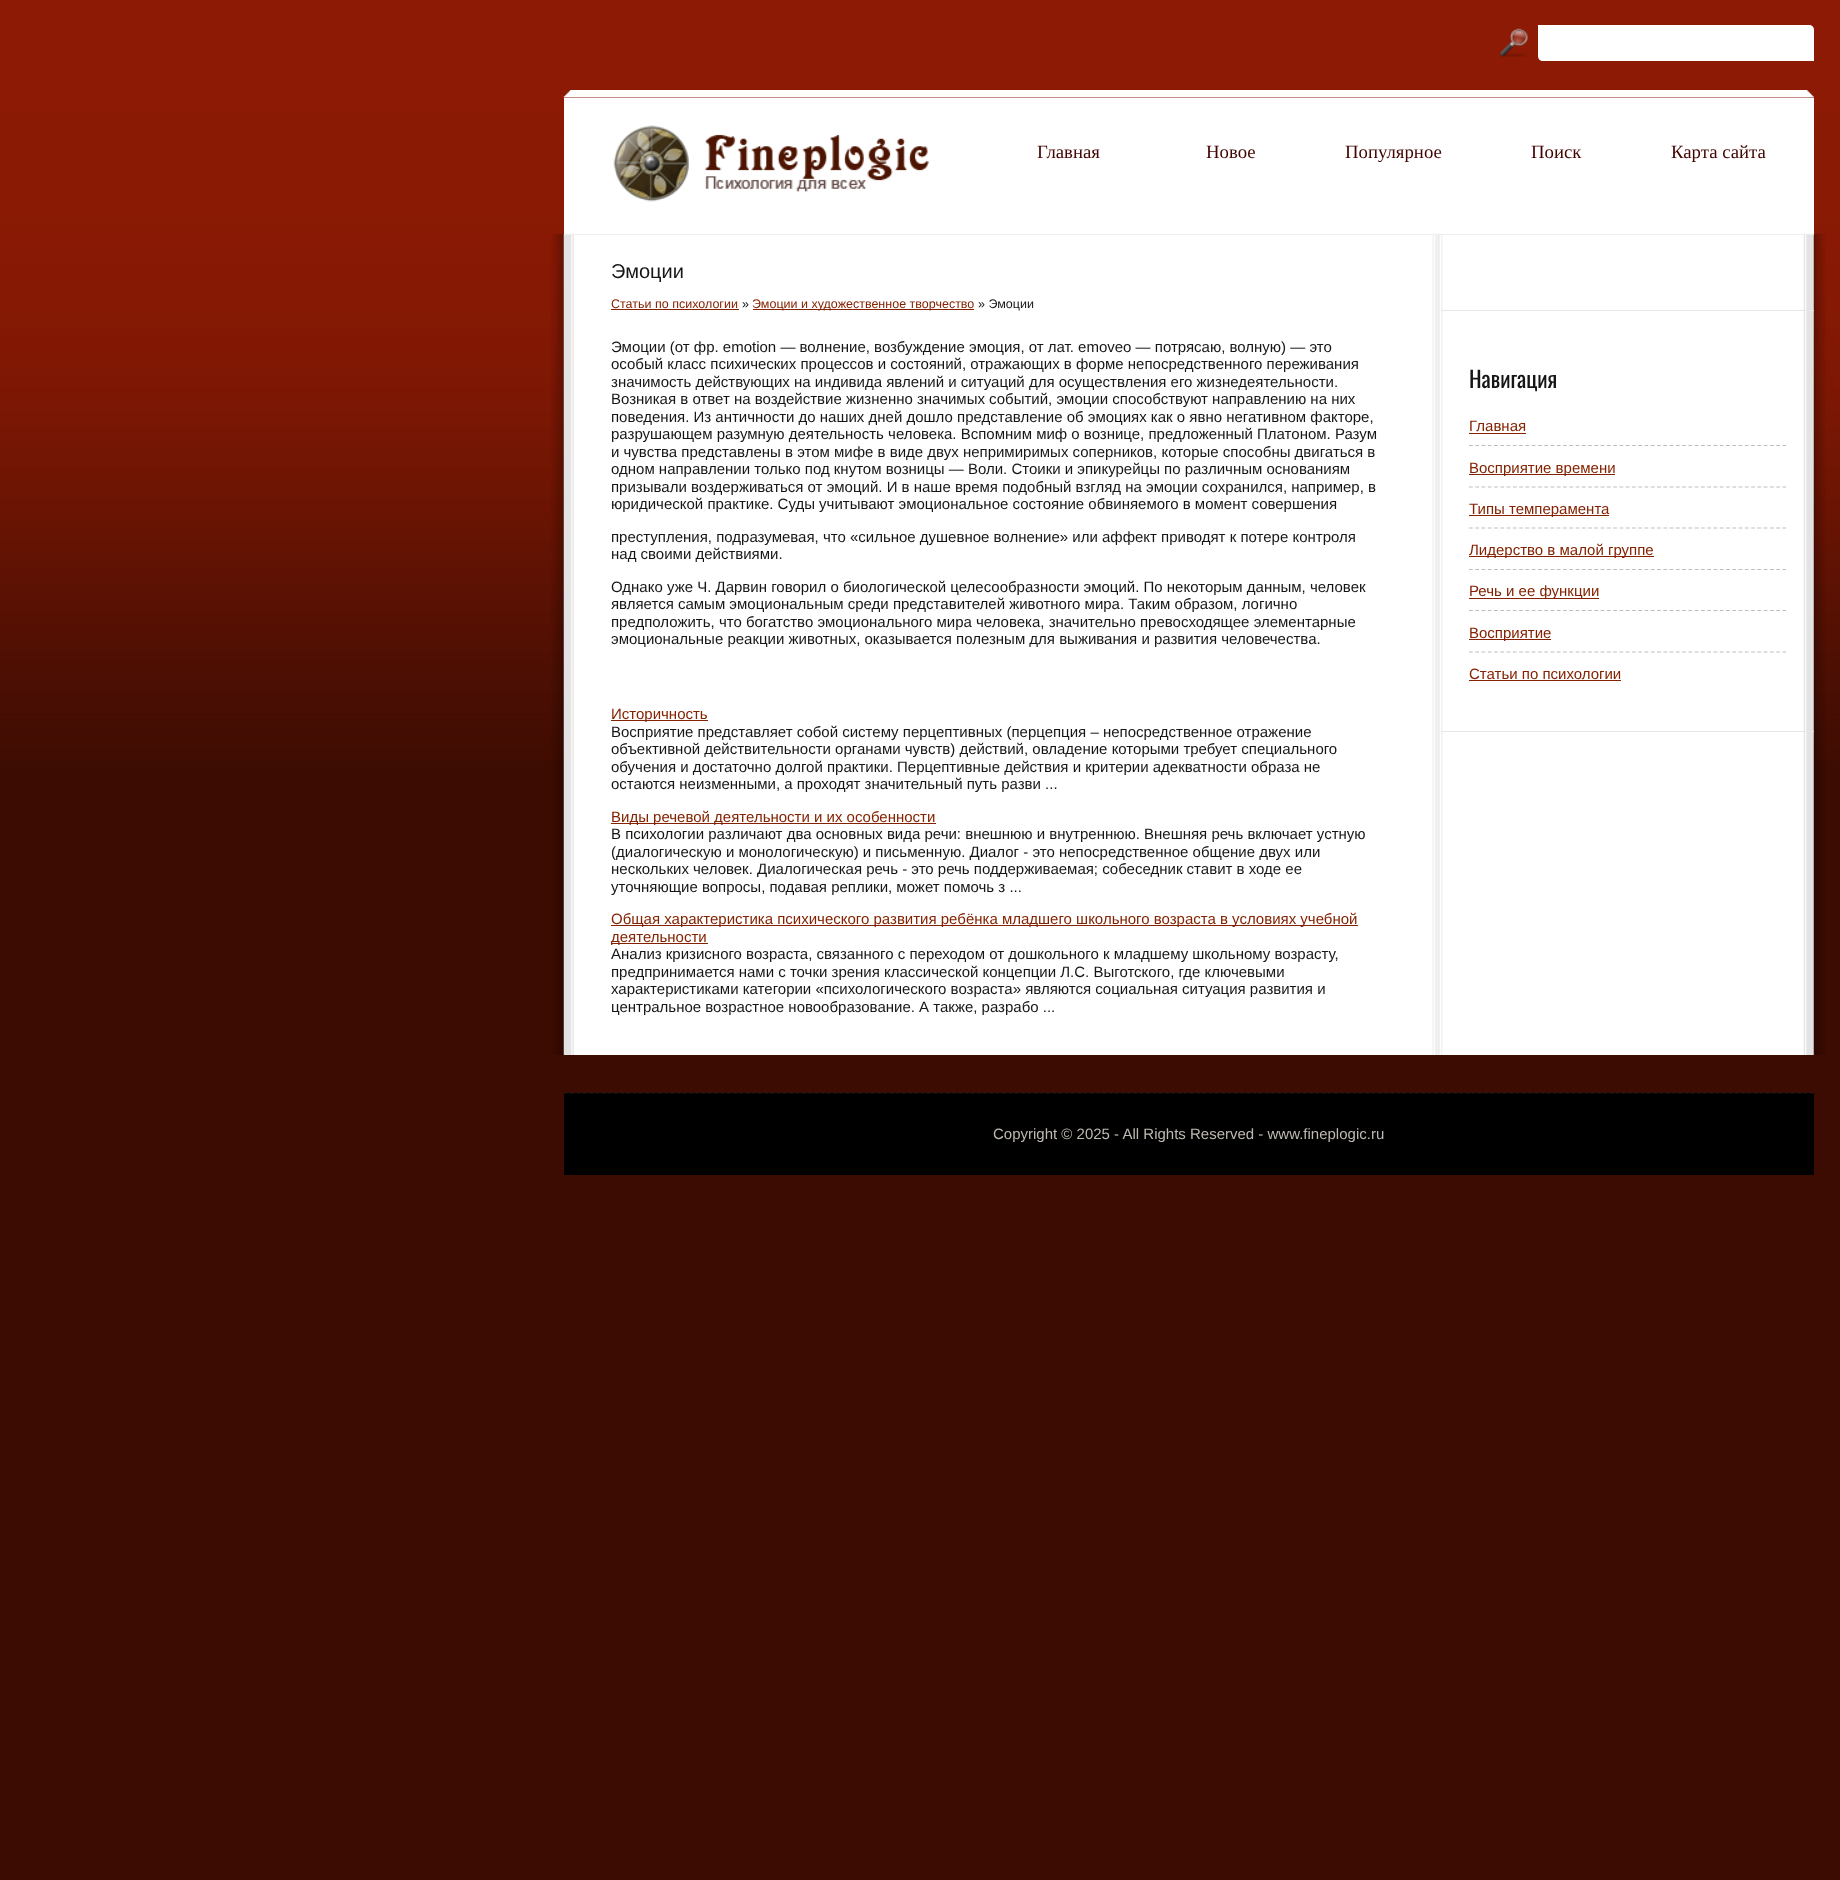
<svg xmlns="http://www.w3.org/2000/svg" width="1840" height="1880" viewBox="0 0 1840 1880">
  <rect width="100%" height="100%" fill="#3c0c02"/>
  <image x="0" y="0" width="1840" height="761" href="img/1.png"/>
  <image x="563" y="90" width="1251" height="8" href="img/2.png"/>
  <image x="1500" y="28" width="28" height="29" href="img/3.png"/>
  <path d="M1538 25H1809C1812 25 1814 27 1814 30V61H1543C1540 61 1538 59 1538 56Z" fill="#fff"/>
  <path d="M564 98h1250v136H564z" fill="#fff"/>
  <image x="613" y="125" width="316" height="77" href="img/4.png"/>
  <image x="551" y="233" width="1275" height="822" href="img/5.png"/>
  <path d="M564 234h1250v1H564z" fill="#efefef"/>
  <path d="M611 309h128v1H611z" fill="#842201"/>
  <path d="M753 309h221v1H753z" fill="#842201"/>
  <path d="M611 720h97v1H611z" fill="#842201"/>
  <path d="M611 823h325v1H611z" fill="#842201"/>
  <path d="M611 925h747v1H611z" fill="#842201"/>
  <path d="M611 943h97v1H611z" fill="#842201"/>
  <path d="M1441 310h373v1H1441z" fill="#e7e7e7"/>
  <path d="M1469 433h57v1H1469z" fill="#842201"/>
  <path d="M1469 445.5H1786" fill="none" stroke="#bdbdbd" stroke-width="1.2" stroke-dasharray="3.75 2.52"/>
  <path d="M1469 474h146v1H1469z" fill="#842201"/>
  <path d="M1469 487H1786" fill="none" stroke="#bdbdbd" stroke-width="1.2" stroke-dasharray="3.75 2.52"/>
  <path d="M1469 515h140v1H1469z" fill="#842201"/>
  <path d="M1469 528H1786" fill="none" stroke="#bdbdbd" stroke-width="1.2" stroke-dasharray="3.75 2.52"/>
  <path d="M1469 556h185v1H1469z" fill="#842201"/>
  <path d="M1469 569.5H1786" fill="none" stroke="#bdbdbd" stroke-width="1.2" stroke-dasharray="3.75 2.52"/>
  <path d="M1469 598h130v1H1469z" fill="#842201"/>
  <path d="M1469 610.5H1786" fill="none" stroke="#bdbdbd" stroke-width="1.2" stroke-dasharray="3.75 2.52"/>
  <path d="M1469 639h82v1H1469z" fill="#842201"/>
  <path d="M1469 652H1786" fill="none" stroke="#bdbdbd" stroke-width="1.2" stroke-dasharray="3.75 2.52"/>
  <path d="M1469 680h152v1H1469z" fill="#842201"/>
  <path d="M1441 731h373v1H1441z" fill="#e7e7e7"/>
  <path d="M564 1093h1250v82H564z" fill="#000"/>
  <path d="M564 1093H1814" fill="none" stroke="#1c1c1c" stroke-width="1.2" stroke-dasharray="3.75 2.51"/>
  <g font-family="Liberation Serif" font-size="18.75" fill="#420502">
    <text x="1037" y="158">Главная</text>
    <text x="1206" y="158">Новое</text>
    <text x="1345" y="158">Популярное</text>
    <text x="1531" y="158">Поиск</text>
    <text x="1671" y="158">Карта сайта</text>
  </g>
  <text x="611" y="278" font-family="Liberation Sans" font-size="20" fill="#161616">Эмоции</text>
  <text x="611" y="308" font-family="Liberation Sans" font-size="12.5" fill="#842201">Статьи по психологии</text>
  <text x="742" y="308" font-family="Liberation Sans" font-size="12.5" fill="#161616">»</text>
  <text x="752" y="308" font-family="Liberation Sans" font-size="12.5" fill="#842201">Эмоции и художественное творчество</text>
  <text x="978" y="308" font-family="Liberation Sans" font-size="12.5" fill="#161616">» Эмоции</text>
  <g font-family="Liberation Sans" font-size="15" fill="#161616">
    <text x="611" y="352">Эмоции (от фр. emotion — волнение, возбуждение эмоция, от лат. emoveo — потрясаю, волную) — это</text>
    <text x="611" y="369">особый класс психических процессов и состояний, отражающих в форме непосредственного переживания</text>
    <text x="611" y="387">значимость действующих на индивида явлений и ситуаций для осуществления его жизнедеятельности.</text>
    <text x="611" y="404">Возникая в ответ на воздействие жизненно значимых событий, эмоции способствуют направлению на них</text>
    <text x="611" y="422">поведения. Из античности до наших дней дошло представление об эмоциях как о явно негативном факторе,</text>
    <text x="611" y="439">разрушающем разумную деятельность человека. Вспомним миф о вознице, предложенный Платоном. Разум</text>
    <text x="611" y="457">и чувства представлены в этом мифе в виде двух непримиримых соперников, которые способны двигаться в</text>
    <text x="611" y="474">одном направлении только под кнутом возницы — Воли. Стоики и эпикурейцы по различным основаниям</text>
    <text x="611" y="492">призывали воздерживаться от эмоций. И в наше время подобный взгляд на эмоции сохранился, например, в</text>
    <text x="611" y="509">юридической практике. Суды учитывают эмоциональное состояние обвиняемого в момент совершения</text>
    <text x="611" y="542">преступления, подразумевая, что «сильное душевное волнение» или аффект приводят к потере контроля</text>
    <text x="611" y="559">над своими действиями.</text>
    <text x="611" y="592">Однако уже Ч. Дарвин говорил о биологической целесообразности эмоций. По некоторым данным, человек</text>
    <text x="611" y="609">является самым эмоциональным среди представителей животного мира. Таким образом, логично</text>
    <text x="611" y="627">предположить, что богатство эмоционального мира человека, значительно превосходящее элементарные</text>
    <text x="611" y="644">эмоциональные реакции животных, оказывается полезным для выживания и развития человечества.</text>
  </g>
  <text x="611" y="719" font-family="Liberation Sans" font-size="15" fill="#842201">Историчность</text>
  <g font-family="Liberation Sans" font-size="15" fill="#161616">
    <text x="611" y="737">Восприятие представляет собой систему перцептивных (перцепция – непосредственное отражение</text>
    <text x="611" y="754">объективной действительности органами чувств) действий, овладение которыми требует специального</text>
    <text x="611" y="772">обучения и достаточно долгой практики. Перцептивные действия и критерии адекватности образа не</text>
    <text x="611" y="789">остаются неизменными, а проходят значительный путь разви ...</text>
  </g>
  <text x="611" y="822" font-family="Liberation Sans" font-size="15" fill="#842201">Виды речевой деятельности и их особенности</text>
  <g font-family="Liberation Sans" font-size="15" fill="#161616">
    <text x="611" y="839">В психологии различают два основных вида речи: внешнюю и внутреннюю. Внешняя речь включает устную</text>
    <text x="611" y="857">(диалогическую и монологическую) и письменную. Диалог - это непосредственное общение двух или</text>
    <text x="611" y="874">нескольких человек. Диалогическая речь - это речь поддерживаемая; собеседник ставит в ходе ее</text>
    <text x="611" y="892">уточняющие вопросы, подавая реплики, может помочь з ...</text>
  </g>
  <g font-family="Liberation Sans" font-size="15" fill="#842201">
    <text x="611" y="924">Общая характеристика психического развития ребёнка младшего школьного возраста в условиях учебной</text>
    <text x="611" y="942">деятельности</text>
  </g>
  <g font-family="Liberation Sans" font-size="15" fill="#161616">
    <text x="611" y="959">Анализ кризисного возраста, связанного с переходом от дошкольного к младшему школьному возрасту,</text>
    <text x="611" y="977">предпринимается нами с точки зрения классической концепции Л.С. Выготского, где ключевыми</text>
    <text x="611" y="994">характеристиками категории «психологического возраста» являются социальная ситуация развития и</text>
    <text x="611" y="1012">центральное возрастное новообразование. А также, разрабо ...</text>
  </g>
  <text x="1469" y="388" font-family="Oswald" font-size="22.5" fill="#161616">Навигация</text>
  <g font-family="Liberation Sans" font-size="15" fill="#842201">
    <text x="1469" y="431">Главная</text>
    <text x="1469" y="473">Восприятие времени</text>
    <text x="1469" y="514">Типы темперамента</text>
    <text x="1469" y="555">Лидерство в малой группе</text>
    <text x="1469" y="596">Речь и ее функции</text>
    <text x="1469" y="638">Восприятие</text>
    <text x="1469" y="679">Статьи по психологии</text>
  </g>
  <text x="993" y="1139" font-family="Liberation Sans" font-size="15" fill="#beb9b1">Copyright © 2025 - All Rights Reserved - www.fineplogic.ru</text>
</svg>
